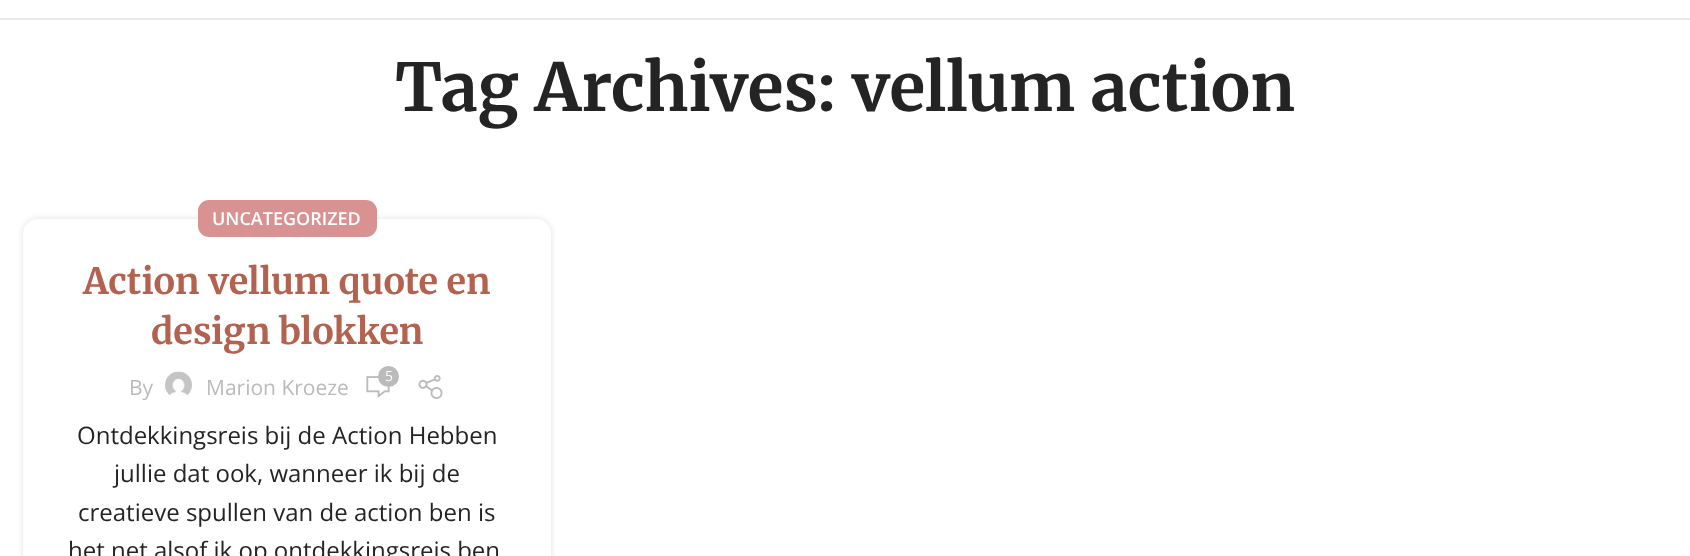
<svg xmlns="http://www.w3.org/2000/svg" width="1690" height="556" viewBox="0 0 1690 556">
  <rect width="100%" height="100%" fill="#fff"/>
  <path d="M0 18h1690v2H0z" fill="#e8e8e8"/>
  <rect x="23" y="219" width="528" height="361" rx="15" fill="#0000001f" filter="blur(3px)"/>
  <rect x="23" y="219" width="528" height="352" rx="15" fill="#fff"/>
  <rect x="198" y="200" width="179" height="37" rx="11" fill="#d79291"/>
  <image x="366" y="376" width="24" height="22" href="img/1.png"/>
  <circle cx="388.5" cy="376.5" r="10.5" fill="#bbb"/>
  <image x="165" y="371" width="27" height="25" href="img/2.png"/>
  <image x="418" y="375" width="25" height="24" href="img/3.png"/>
  <text x="395" y="111" font-family="Merriweather" font-size="66" font-weight="bold" fill="#242424">Tag Archives: vellum action</text>
  <text x="212" y="225" font-family="Open Sans" font-size="18" font-weight="600" fill="#fff">UNCATEGORIZED</text>
  <g font-family="Merriweather" font-size="36" font-weight="bold" fill="#b3624f">
    <text x="83" y="294">Action vellum quote en</text>
    <text x="151" y="344">design blokken</text>
  </g>
  <text x="385" y="381" font-family="Open Sans" font-size="14" fill="#fff">5</text>
  <g font-family="Open Sans" font-size="21" fill="#bbb">
    <text x="129" y="395">By</text>
    <text x="206" y="395">Marion Kroeze</text>
  </g>
  <g font-family="Open Sans" font-size="24" fill="#242424">
    <text x="77" y="444">Ontdekkingsreis bij de Action Hebben</text>
    <text x="114" y="482">jullie dat ook, wanneer ik bij de</text>
    <text x="78" y="521">creatieve spullen van de action ben is</text>
    <text x="68" y="559">het net alsof ik op ontdekkingsreis ben</text>
  </g>
</svg>
